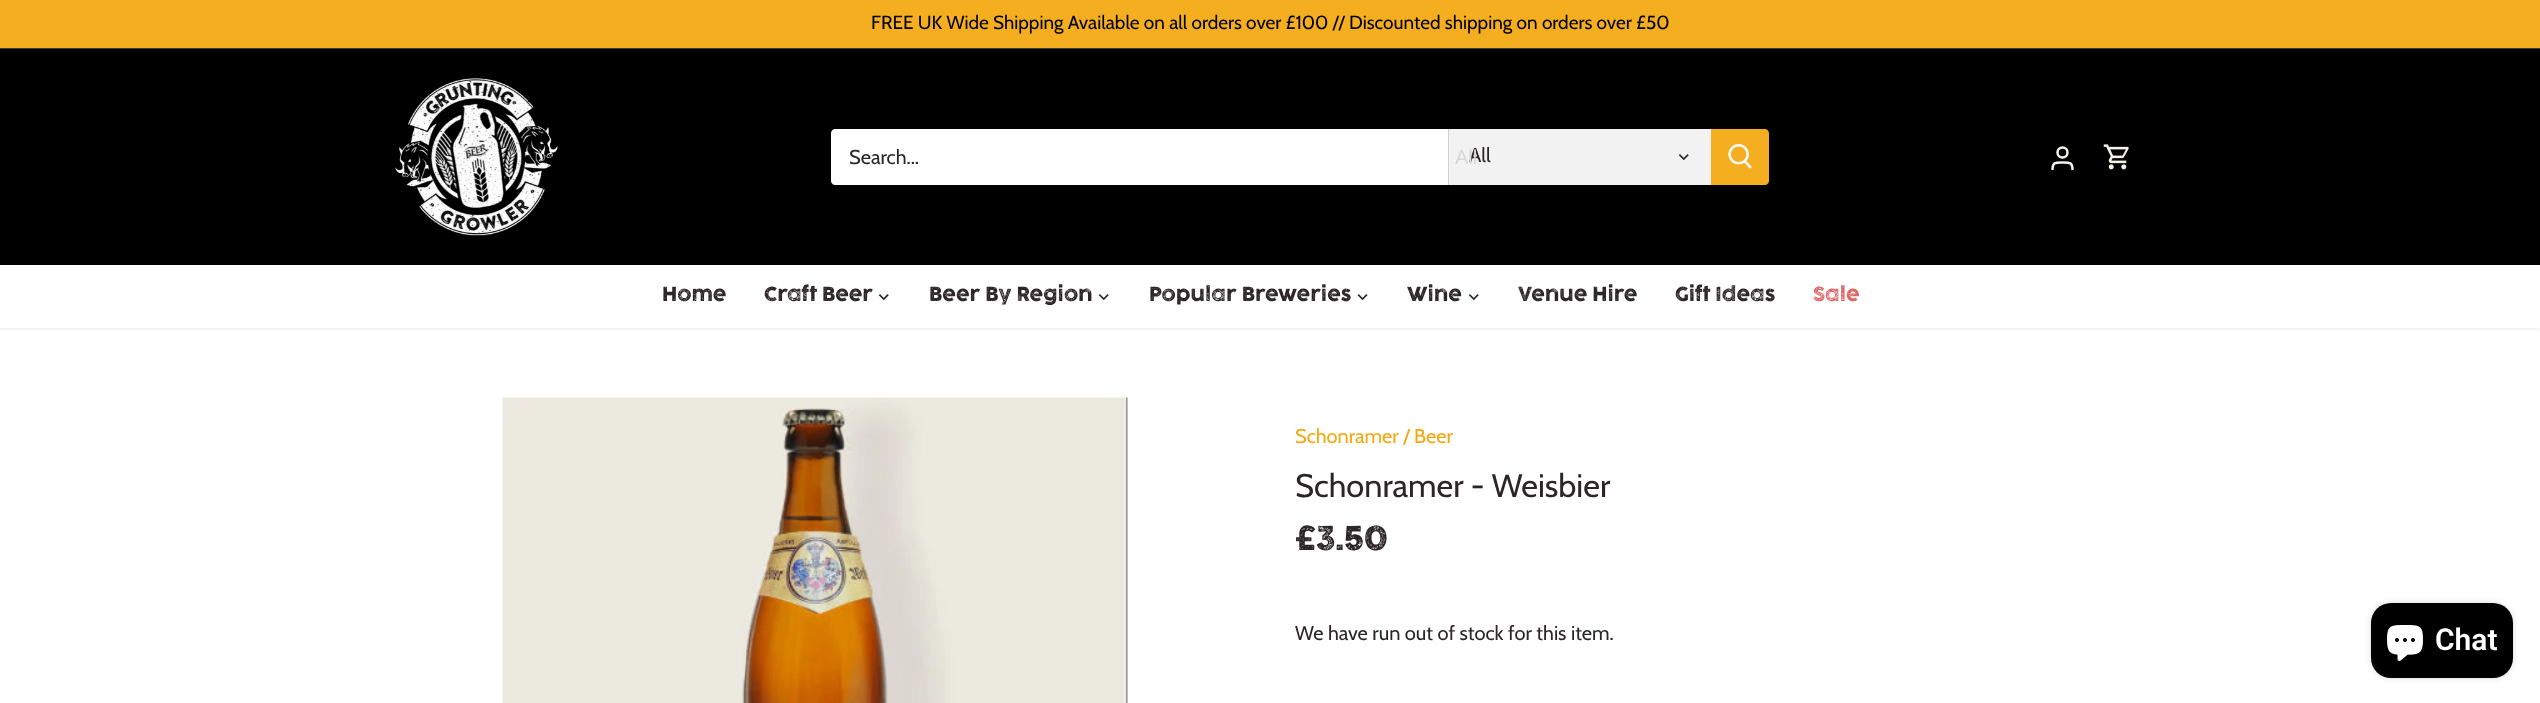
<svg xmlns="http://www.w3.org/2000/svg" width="2540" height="703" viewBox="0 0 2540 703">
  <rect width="100%" height="100%" fill="#fff"/>
  <path d="M-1 48h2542v281H-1z" fill="#00000014" filter="blur(2px)"/>
  <path d="M0 0h2540v48H0z" fill="#f4ae20"/>
  <path d="M0 48h2540v1H0z" fill="#3d3d3a"/>
  <path d="M0 265h2540v63H0z" fill="#fff"/>
  <path d="M0 49h2540v216H0z" fill="#000"/>
  <image x="395" y="78" width="163" height="158" href="img/1.png"/>
  <path d="M835 129H1448V185H835C833 185 831 183 831 181V133C831 131 833 129 835 129Z" fill="#fff"/>
  <path d="M1449 129h262v56H1449z" fill="#f2f2f2"/>
  <path d="M1448 129h1v56H1448z" fill="#d3d1d2"/>
  <image x="1678" y="154" width="11" height="7" href="img/2.png"/>
  <path d="M1711 129H1765C1767 129 1769 131 1769 133V181C1769 183 1767 185 1765 185H1711Z" fill="#f4ae20"/>
  <image x="1728" y="144" width="24" height="25" href="img/3.png"/>
  <circle cx="2062.5" cy="152.5" r="5" fill="none" stroke="#f4f2e9" stroke-width="2.5"/>
  <path d="M2072.5 170C2072.5 162 2069.5 162.5 2062.5 162.5C2055.5 162.5 2052.5 162 2052.5 170" fill="none" stroke="#f4f2e9" stroke-width="2.5"/>
  <image x="2103" y="144" width="26" height="26" href="img/4.png"/>
  <image x="878" y="294" width="11" height="7" href="img/5.png"/>
  <image x="1098" y="294" width="11" height="7" href="img/5.png"/>
  <image x="1357" y="294" width="11" height="7" href="img/6.png"/>
  <image x="1468" y="294" width="11" height="7" href="img/5.png"/>
  <image x="502" y="397" width="626" height="306" href="img/7.png"/>
  <rect x="2371" y="603" width="142" height="75" rx="20" fill="#00000026" filter="blur(3px)"/>
  <rect x="2371" y="603" width="142" height="75" rx="20" fill="#000"/>
  <image x="2387" y="625" width="36" height="36" href="img/8.png"/>
  <text x="871" y="29" font-family="Cabin" font-size="19" fill="#000">FREE UK Wide Shipping Available on all orders over £100 // Discounted shipping on orders over £50</text>
  <g font-family="Cabin" font-size="20" fill="#2c2528">
    <text x="849" y="164">Search...</text>
    <text x="1469" y="162">All</text>
  </g>
  <text x="1455" y="164" font-family="Liberation Sans" font-size="20" fill="#d8d7d7">All</text>
  <g font-family="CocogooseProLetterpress" font-size="18.75" fill="#2c2528">
    <text x="662" y="301">Home</text>
    <text x="764" y="301">Craft Beer</text>
    <text x="929" y="301">Beer By Region</text>
    <text x="1149" y="301">Popular Breweries</text>
    <text x="1407" y="301">Wine</text>
    <text x="1518" y="301">Venue Hire</text>
    <text x="1675" y="301">Gift Ideas</text>
  </g>
  <text x="1813" y="301" font-family="CocogooseProLetterpress" font-size="18.75" fill="#d66">Sale</text>
  <text x="1295" y="443" font-family="Cabin" font-size="20" fill="#f4a80e">Schonramer / Beer</text>
  <text x="1295" y="497" font-family="Cabin" font-size="32.5" fill="#2c2528">Schonramer - Weisbier</text>
  <text x="1295" y="550" font-family="CocogooseProLetterpress" font-size="32" fill="#2c2528">£3.50</text>
  <text x="1295" y="640" font-family="Cabin" font-size="20" fill="#2c2528">We have run out of stock for this item.</text>
  <text x="2435" y="650" font-family="Roboto" font-size="30" font-weight="600" fill="#fff">Chat</text>
</svg>
